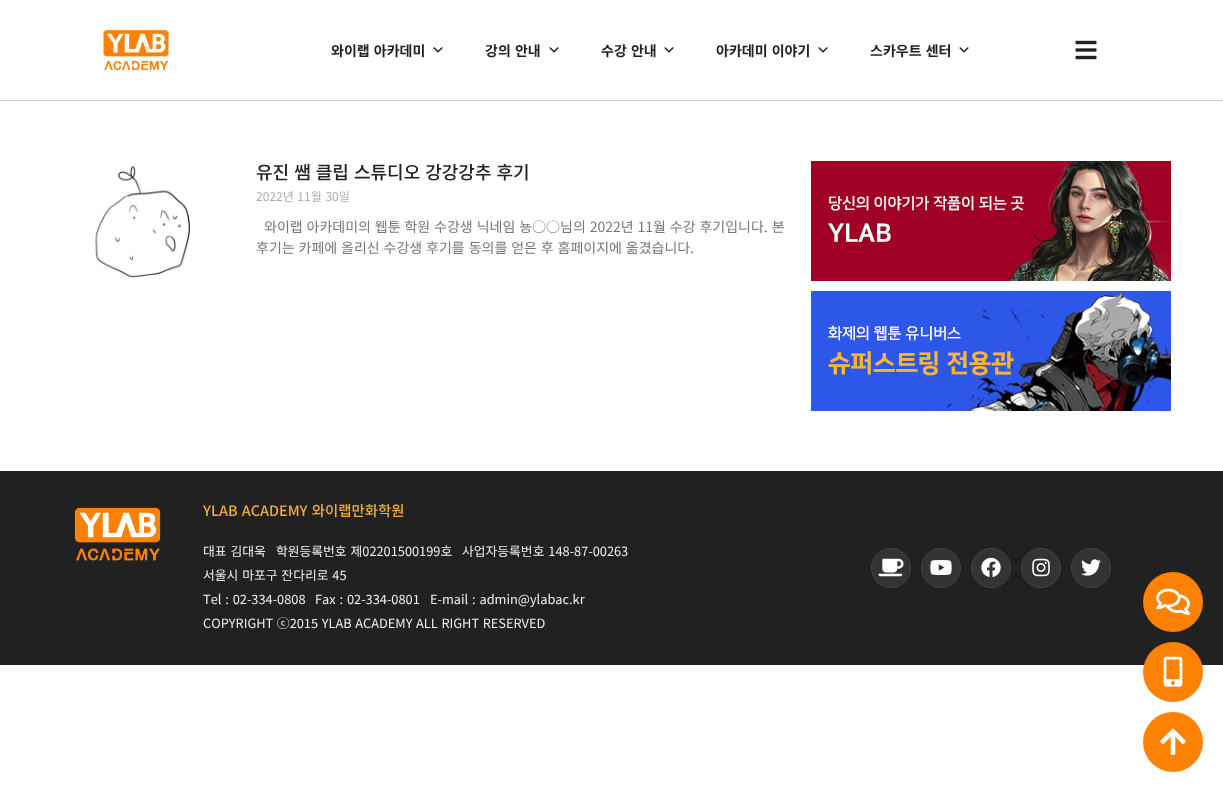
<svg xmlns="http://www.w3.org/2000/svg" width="1223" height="797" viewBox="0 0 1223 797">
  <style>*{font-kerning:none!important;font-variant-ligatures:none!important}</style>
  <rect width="100%" height="100%" fill="#fff"/>
  <path d="M0 100h1223v1H0z" fill="#ccc"/>
  <image x="103" y="30" width="66" height="41" href="img/1.png"/>
  <image x="433" y="47" width="10" height="6" href="img/2.png"/>
  <image x="549" y="47" width="10" height="6" href="img/2.png"/>
  <image x="664" y="47" width="10" height="6" href="img/2.png"/>
  <image x="818" y="47" width="10" height="6" href="img/2.png"/>
  <image x="959" y="47" width="10" height="6" href="img/2.png"/>
  <image x="1075" y="40" width="22" height="20" href="img/3.png"/>
  <image x="95" y="166" width="96" height="112" href="img/4.png"/>
  <image x="811" y="161" width="360" height="120" href="img/5.png"/>
  <image x="811" y="291" width="360" height="120" href="img/6.png"/>
  <path d="M0 471h1223v194H0z" fill="#212121"/>
  <image x="74" y="507" width="87" height="54" href="img/7.png"/>
  <circle cx="891" cy="568" r="19.5" fill="#333" stroke="#444"/>
  <image x="878" y="558" width="26" height="19" href="img/8.png"/>
  <circle cx="941" cy="568" r="19.5" fill="#333" stroke="#444"/>
  <image x="930" y="560" width="22" height="15" href="img/9.png"/>
  <circle cx="991" cy="568" r="19.5" fill="#333" stroke="#444"/>
  <image x="981" y="557" width="20" height="20" href="img/10.png"/>
  <circle cx="1041" cy="568" r="19.5" fill="#333" stroke="#444"/>
  <image x="1032" y="558" width="18" height="19" href="img/11.png"/>
  <circle cx="1091" cy="568" r="19.5" fill="#333" stroke="#444"/>
  <image x="1081" y="559" width="20" height="17" href="img/12.png"/>
  <circle cx="1173" cy="602" r="30" fill="#fd8204"/>
  <image x="1156" y="588" width="34" height="27" href="img/13.png"/>
  <circle cx="1173" cy="672" r="30" fill="#fd8204"/>
  <image x="1163" y="656" width="20" height="31" href="img/14.png"/>
  <circle cx="1173" cy="742" r="30" fill="#fd8204"/>
  <image x="1160" y="728" width="26" height="27" href="img/15.png"/>
  <g font-family="Noto Sans KR" font-size="14" font-weight="bold" fill="#222">
    <text x="331" y="56" word-spacing="1">와이랩 아카데미</text>
    <text x="485" y="56" word-spacing="1">강의 안내</text>
    <text x="601" y="56" word-spacing="1">수강 안내</text>
    <text x="716" y="56" word-spacing="1">아카데미 이야기</text>
    <text x="870" y="56" word-spacing="1">스카우트 센터</text>
  </g>
  <text x="256" y="179" word-spacing="1" font-family="Noto Sans KR" font-size="18" font-weight="500" fill="#222">유진 쌤 클립 스튜디오 강강강추 후기</text>
  <text x="256" y="201" word-spacing="1" font-family="Noto Sans KR" font-size="12" fill="#adadad">2022년 11월 30일</text>
  <g font-family="Noto Sans KR" font-size="14" fill="#777">
    <text x="264" y="232" word-spacing="0.75">와이랩 아카데미의 웹툰 학원 수강생 닉네임 뇽○○님의 2022년 11월 수강 후기입니다. 본</text>
    <text x="256" y="253" word-spacing="0.75">후기는 카페에 올리신 수강생 후기를 동의를 얻은 후 홈페이지에 옮겼습니다.</text>
  </g>
  <text x="203" y="516" word-spacing="1" font-family="Noto Sans KR" font-size="14.4" font-weight="500" fill="#f1ae2e">YLAB ACADEMY 와이랩만화학원</text>
  <g font-family="Noto Sans KR" font-size="12.8" fill="#eee">
    <text x="203" y="556" word-spacing="1">대표 김대욱</text>
    <text x="276" y="556" word-spacing="1">학원등록번호 제02201500199호</text>
    <text x="462" y="556" word-spacing="1">사업자등록번호 148-87-00263</text>
    <text x="203" y="580" word-spacing="1">서울시 마포구 잔다리로 45</text>
    <text x="203" y="604" word-spacing="1">Tel : 02-334-0808</text>
    <text x="315" y="604" word-spacing="1">Fax : 02-334-0801</text>
    <text x="430" y="604" word-spacing="1">E-mail : admin@ylabac.kr</text>
    <text x="203" y="628" word-spacing="0.75">COPYRIGHT ⓒ2015 YLAB ACADEMY ALL RIGHT RESERVED</text>
  </g>
</svg>
